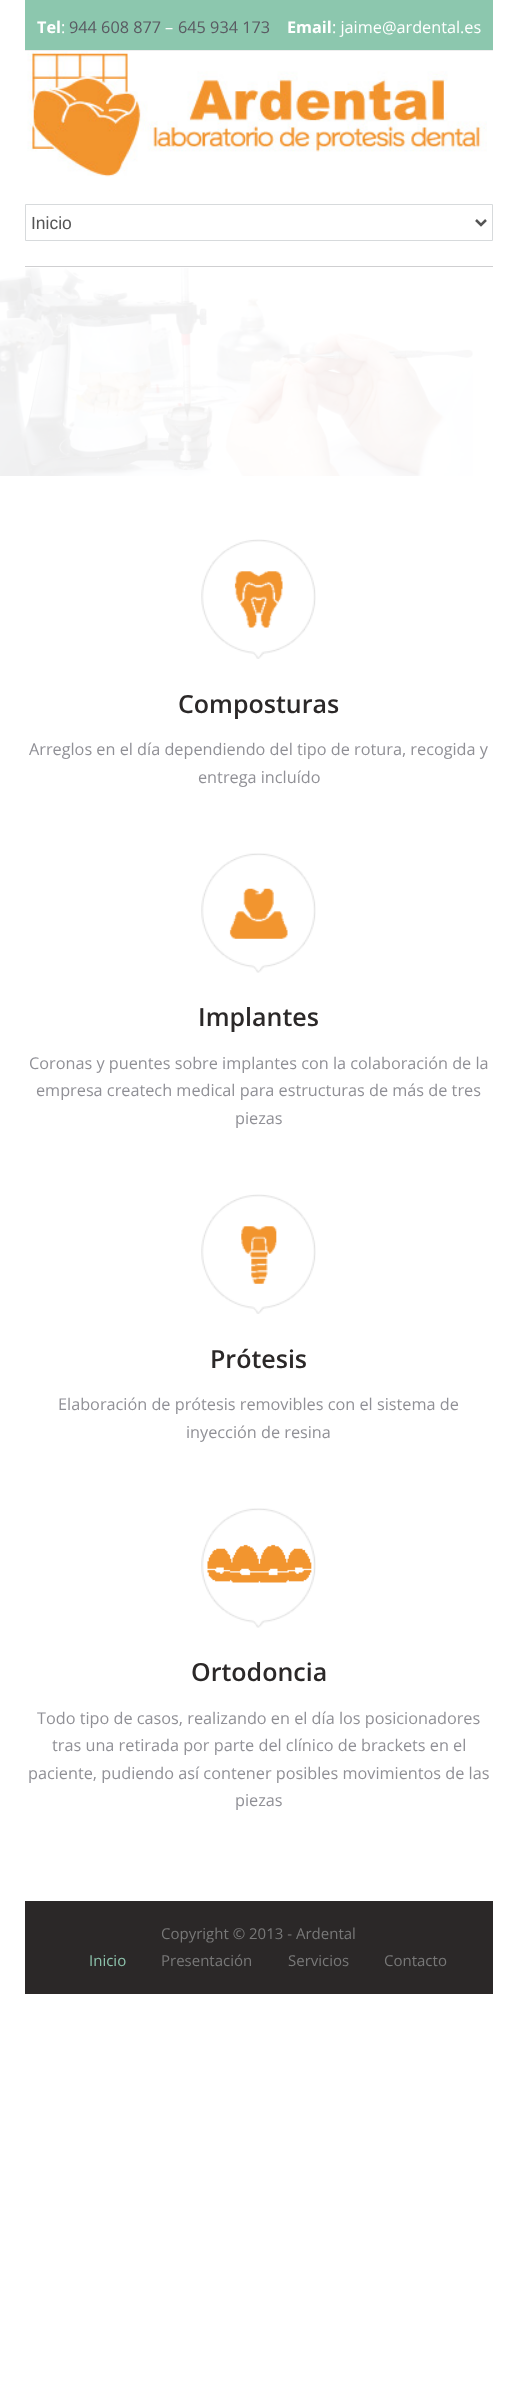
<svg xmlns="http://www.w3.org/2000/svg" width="517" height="2395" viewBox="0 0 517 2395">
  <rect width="100%" height="100%" fill="#fff"/>
  <path d="M25 0h468v50H25z" fill="#8cc7ae"/>
  <path d="M25 50h468v1H25z" fill="#eee"/>
  <path d="M25 266h468v1H25z" fill="#cfcfd1"/>
  <image x="27" y="51" width="460" height="126" href="img/1.png"/>
  <path d="M25.5 204.5h467v36H25.5z" fill="none" stroke="#d7dadc"/>
  <path d="M476 220L481 225L486 220" fill="none" stroke="#555" stroke-width="2.5"/>
  <image x="0" y="268" width="473" height="208" href="img/2.png"/>
  <image x="201" y="539" width="115" height="120" href="img/3.png"/>
  <image x="201" y="853" width="115" height="120" href="img/4.png"/>
  <image x="201" y="1194" width="115" height="120" href="img/5.png"/>
  <image x="201" y="1508" width="115" height="120" href="img/6.png"/>
  <path d="M25 1901h468v93H25z" fill="#2b2828"/>
  <text x="37" y="33" font-family="Open Sans" font-size="16.25" font-weight="bold" fill="#fff">Tel</text>
  <text x="61" y="33" font-family="Open Sans" font-size="16.25" fill="#fff">:</text>
  <text x="69" y="33" font-family="Open Sans" font-size="16.25" fill="#5a5a62">944 608 877</text>
  <text x="165" y="33" font-family="Open Sans" font-size="16.25" fill="#fff">–</text>
  <text x="178" y="33" font-family="Open Sans" font-size="16.25" fill="#5a5a62">645 934 173</text>
  <text x="287" y="33" font-family="Open Sans" font-size="16.25" font-weight="bold" fill="#fff">Email</text>
  <text x="332" y="33" font-family="Open Sans" font-size="16.25" fill="#fff">: jaime@ardental.es</text>
  <text x="31" y="229" font-family="Liberation Sans" font-size="17.5" fill="#555">Inicio</text>
  <text x="178" y="713" font-family="Open Sans" font-size="25" font-weight="600" fill="#2b2828">Composturas</text>
  <g font-family="Open Sans" font-size="16.25" fill="#909096">
    <text x="29" y="755">Arreglos en el día dependiendo del tipo de rotura, recogida y</text>
    <text x="198" y="783">entrega incluído</text>
  </g>
  <text x="198" y="1026" font-family="Open Sans" font-size="25" font-weight="600" fill="#2b2828">Implantes</text>
  <g font-family="Open Sans" font-size="16.25" fill="#909096">
    <text x="29" y="1069">Coronas y puentes sobre implantes con la colaboración de la</text>
    <text x="36" y="1096">empresa createch medical para estructuras de más de tres</text>
    <text x="235" y="1124">piezas</text>
  </g>
  <text x="210" y="1368" font-family="Open Sans" font-size="25" font-weight="600" fill="#2b2828">Prótesis</text>
  <g font-family="Open Sans" font-size="16.25" fill="#909096">
    <text x="58" y="1410">Elaboración de prótesis removibles con el sistema de</text>
    <text x="186" y="1438">inyección de resina</text>
  </g>
  <text x="191" y="1681" font-family="Open Sans" font-size="25" font-weight="600" fill="#2b2828">Ortodoncia</text>
  <g font-family="Open Sans" font-size="16.25" fill="#909096">
    <text x="37" y="1724">Todo tipo de casos, realizando en el día los posicionadores</text>
    <text x="52" y="1751">tras una retirada por parte del clínico de brackets en el</text>
    <text x="28" y="1779">paciente, pudiendo así contener posibles movimientos de las</text>
    <text x="235" y="1806">piezas</text>
  </g>
  <text x="161" y="1939" font-family="Open Sans" font-size="15" fill="#787878">Copyright © 2013 - Ardental</text>
  <text x="89" y="1966" font-family="Open Sans" font-size="15" fill="#8dc3ac">Inicio</text>
  <g font-family="Open Sans" font-size="15" fill="#787878">
    <text x="161" y="1966">Presentación</text>
    <text x="288" y="1966">Servicios</text>
    <text x="384" y="1966">Contacto</text>
  </g>
</svg>
